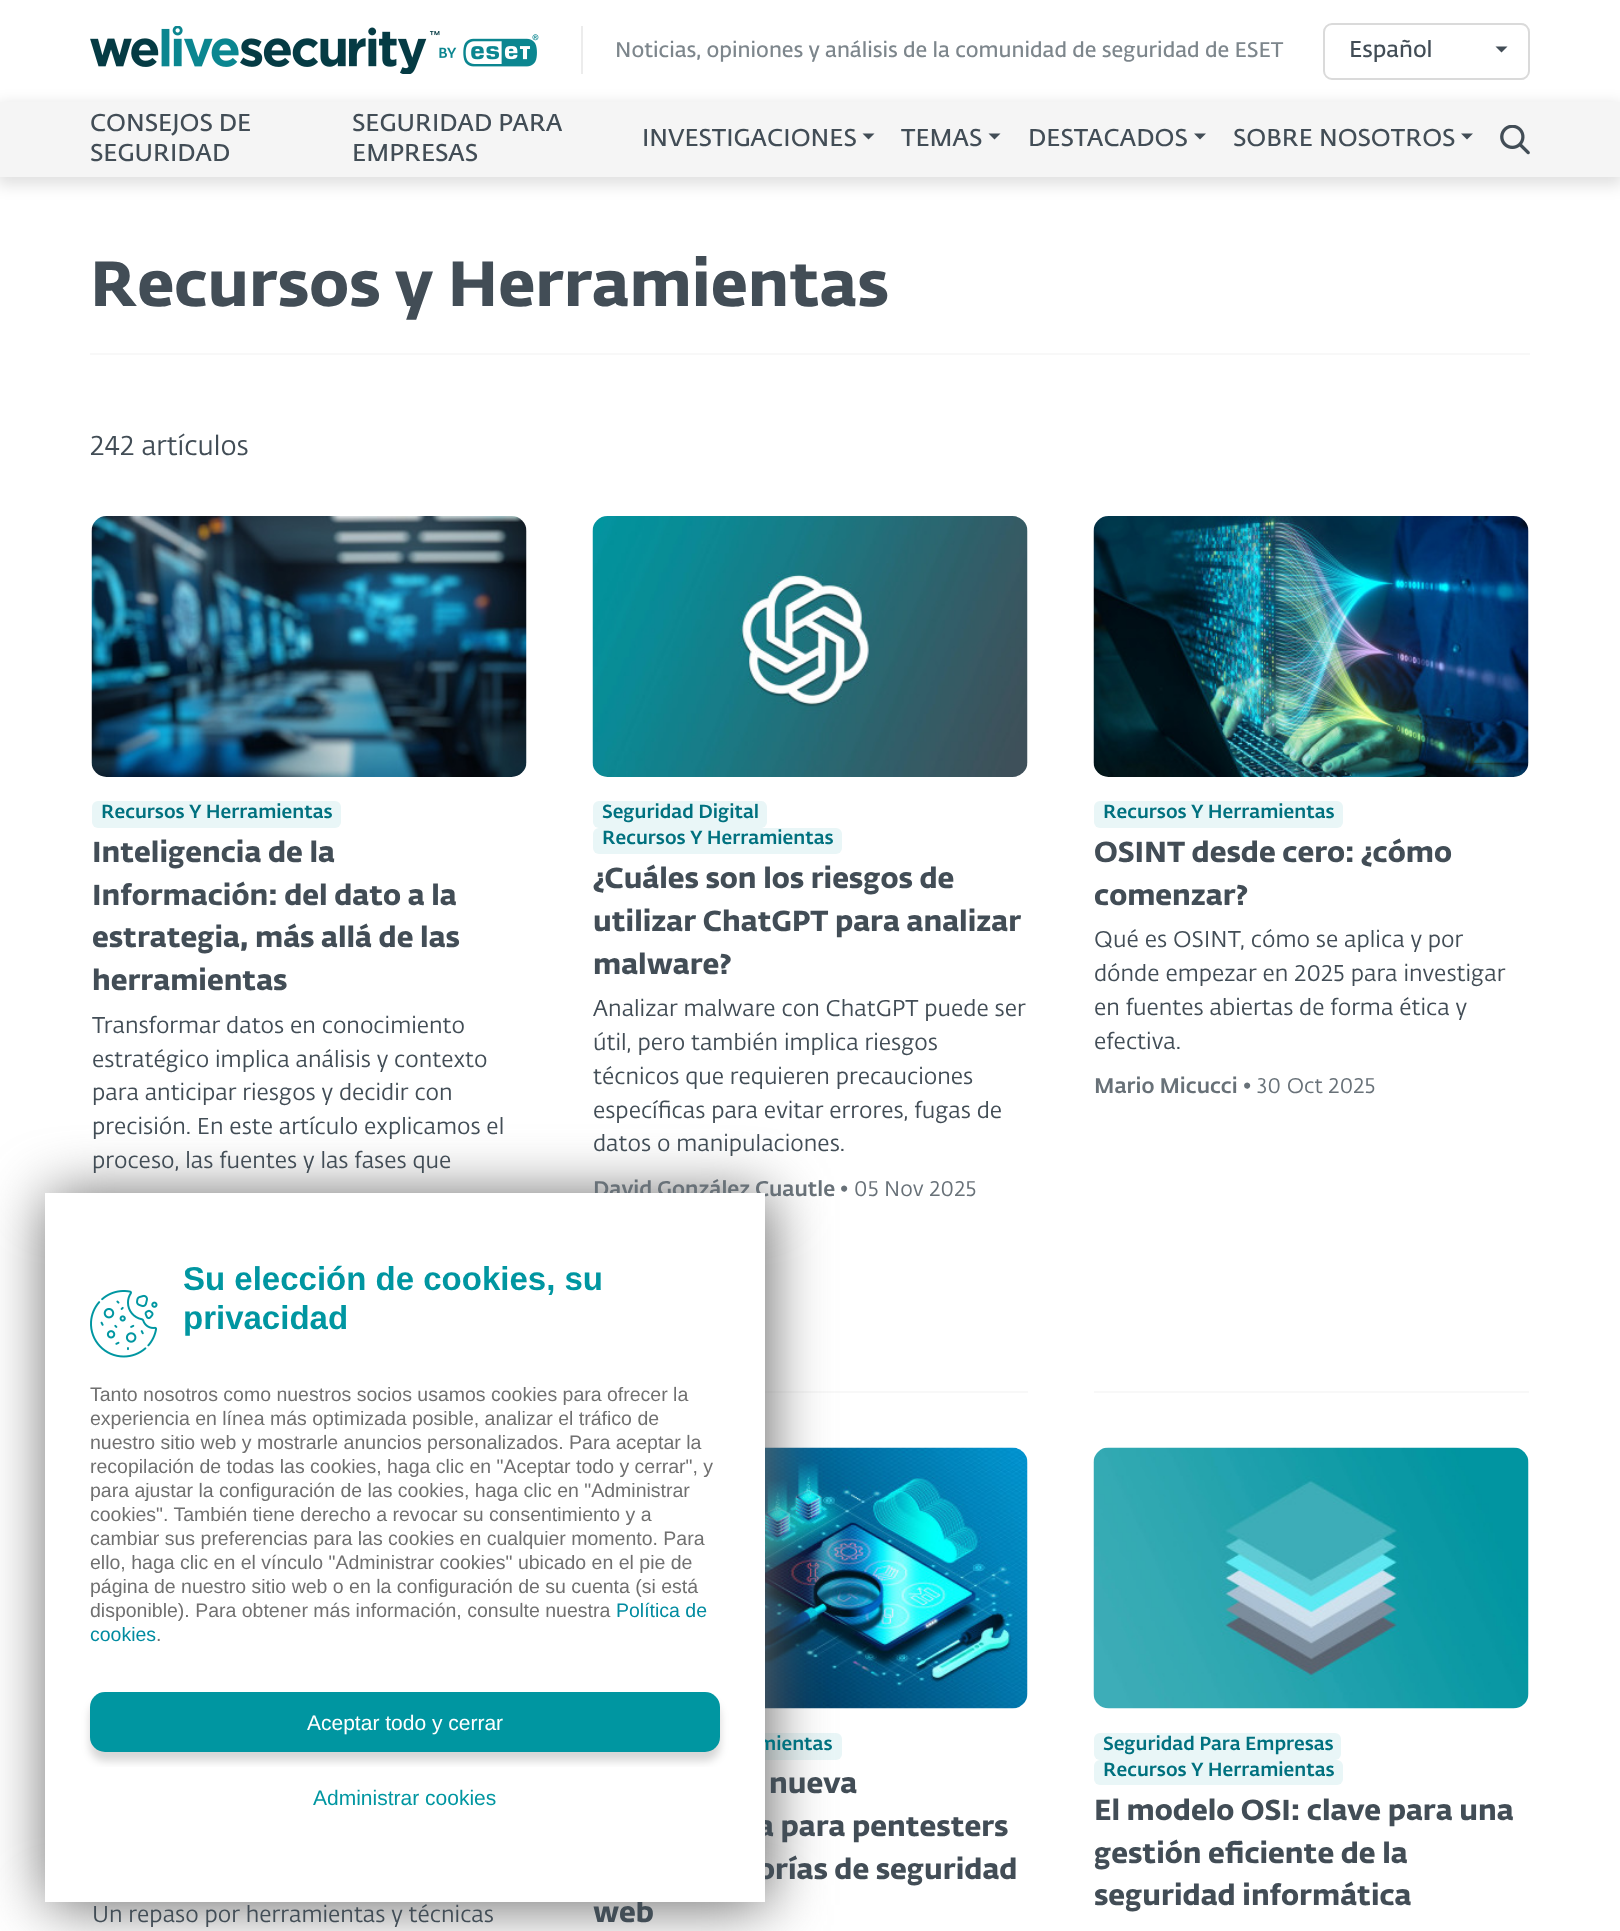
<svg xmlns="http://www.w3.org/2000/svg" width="1620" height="1931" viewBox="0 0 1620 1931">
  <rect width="100%" height="100%" fill="#fff"/>
  <path d="M581 26h2v48H581z" fill="#ececec"/>
  <image x="90" y="26" width="449" height="48" href="img/1.png"/>
  <rect x="1324" y="24" width="205" height="55" rx="8" fill="none" stroke="#dadada" stroke-width="2"/>
  <path d="M1495.5 46.5H1507.5L1501.5 52.5Z" fill="#424d56"/>
  <path d="M-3 104h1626v81H-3z" fill="#0000001f" filter="blur(7.5px)"/>
  <path d="M0 102h1620v75H0z" fill="#f5f5f5"/>
  <path d="M862.5 133.5H874.5L868.5 139.5Z" fill="#424d56"/>
  <path d="M988.5 133.5H1000.5L994.5 139.5Z" fill="#424d56"/>
  <path d="M1194 133.5H1206L1200 139.5Z" fill="#424d56"/>
  <path d="M1461 133.5H1473L1467 139.5Z" fill="#424d56"/>
  <image x="1500" y="125" width="30" height="30" href="img/2.png"/>
  <path d="M90 353h1440v2H90z" fill="#f8f8f8"/>
  <image x="91" y="516" width="436" height="261" href="img/3.png"/>
  <rect x="92" y="801" width="249" height="27" rx="6" fill="#e9f6f7"/>
  <image x="592" y="516" width="436" height="261" href="img/4.png"/>
  <rect x="593" y="801" width="174" height="27" rx="6" fill="#e9f6f7"/>
  <rect x="593" y="828" width="249" height="26" rx="6" fill="#e9f6f7"/>
  <image x="1093" y="516" width="436" height="261" href="img/5.png"/>
  <rect x="1094" y="801" width="249" height="27" rx="6" fill="#e9f6f7"/>
  <path d="M765 1391h263v2H765z" fill="#f8f8f8"/>
  <image x="765" y="1447" width="263" height="262" href="img/6.png"/>
  <rect x="593" y="1733" width="249" height="27" rx="6" fill="#e9f6f7"/>
  <path d="M1094 1391h435v2H1094z" fill="#f8f8f8"/>
  <image x="1093" y="1447" width="436" height="262" href="img/7.png"/>
  <rect x="1094" y="1733" width="247" height="27" rx="6" fill="#e9f6f7"/>
  <rect x="1094" y="1760" width="249" height="25" rx="6" fill="#e9f6f7"/>
  <path d="M48 1196h720v709H48z" fill="#666" filter="blur(30px)"/>
  <text x="615" y="57" font-family="'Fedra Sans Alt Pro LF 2'" font-size="21" fill="#7d868c">Noticias, opiniones y análisis de la comunidad de seguridad de ESET</text>
  <text x="1349" y="57" font-family="'Fedra Sans Alt Pro LF 2'" font-size="22.5" fill="#424d56">Español</text>
  <g font-family="'Fedra Sans Alt Pro LF 2'" font-size="24" fill="#424d56">
    <text x="90" y="131">CONSEJOS DE</text>
    <text x="90" y="161">SEGURIDAD</text>
    <text x="352" y="131">SEGURIDAD PARA</text>
    <text x="352" y="161">EMPRESAS</text>
    <text x="642" y="146">INVESTIGACIONES</text>
    <text x="901" y="146">TEMAS</text>
    <text x="1028" y="146">DESTACADOS</text>
    <text x="1233" y="146">SOBRE NOSOTROS</text>
  </g>
  <text x="90" y="306" font-family="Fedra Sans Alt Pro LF" font-size="63" font-weight="bold" fill="#424d56">Recursos y Herramientas</text>
  <text x="90" y="455" font-family="Fedra Sans Alt Pro LF" font-size="27" fill="#424d56">242 artículos</text>
  <text x="101" y="818" font-family="Fedra Sans Alt Pro LF" font-size="18.75" font-weight="500" fill="#00717f">Recursos Y Herramientas</text>
  <g font-family="Fedra Sans Alt Pro LF" font-size="28.5" font-weight="bold" fill="#424d56">
    <text x="92" y="862">Inteligencia de la</text>
    <text x="92" y="905">Información: del dato a la</text>
    <text x="92" y="947">estrategia, más allá de las</text>
    <text x="92" y="990">herramientas</text>
  </g>
  <g font-family="Fedra Sans Alt Pro LF" font-size="22.5" fill="#424d56">
    <text x="92" y="1033">Transformar datos en conocimiento</text>
    <text x="92" y="1067">estratégico implica análisis y contexto</text>
    <text x="92" y="1100">para anticipar riesgos y decidir con</text>
    <text x="92" y="1134">precisión. En este artículo explicamos el</text>
    <text x="92" y="1168">proceso, las fuentes y las fases que</text>
  </g>
  <g font-family="Fedra Sans Alt Pro LF" font-size="18.75" font-weight="500" fill="#00717f">
    <text x="602" y="818">Seguridad Digital</text>
    <text x="602" y="844">Recursos Y Herramientas</text>
  </g>
  <g font-family="Fedra Sans Alt Pro LF" font-size="28.5" font-weight="bold" fill="#424d56">
    <text x="593" y="888">¿Cuáles son los riesgos de</text>
    <text x="593" y="931">utilizar ChatGPT para analizar</text>
    <text x="593" y="974">malware?</text>
  </g>
  <g font-family="Fedra Sans Alt Pro LF" font-size="22.5" fill="#424d56">
    <text x="593" y="1016">Analizar malware con ChatGPT puede ser</text>
    <text x="593" y="1050">útil, pero también implica riesgos</text>
    <text x="593" y="1084">técnicos que requieren precauciones</text>
    <text x="593" y="1118">específicas para evitar errores, fugas de</text>
    <text x="593" y="1151">datos o manipulaciones.</text>
  </g>
  <text x="593" y="1196" font-family="Fedra Sans Alt Pro LF" font-size="21" font-weight="500" fill="#687178">David González Cuautle</text>
  <text x="840" y="1196" font-family="Fedra Sans Alt Pro LF" font-size="21" fill="#687178">• 05 Nov 2025</text>
  <text x="1103" y="818" font-family="Fedra Sans Alt Pro LF" font-size="18.75" font-weight="500" fill="#00717f">Recursos Y Herramientas</text>
  <g font-family="Fedra Sans Alt Pro LF" font-size="28.5" font-weight="bold" fill="#424d56">
    <text x="1094" y="862">OSINT desde cero: ¿cómo</text>
    <text x="1094" y="905">comenzar?</text>
  </g>
  <g font-family="Fedra Sans Alt Pro LF" font-size="22.5" fill="#424d56">
    <text x="1094" y="947">Qué es OSINT, cómo se aplica y por</text>
    <text x="1094" y="981">dónde empezar en 2025 para investigar</text>
    <text x="1094" y="1015">en fuentes abiertas de forma ética y</text>
    <text x="1094" y="1049">efectiva.</text>
  </g>
  <text x="1094" y="1093" font-family="Fedra Sans Alt Pro LF" font-size="21" font-weight="500" fill="#687178">Mario Micucci</text>
  <text x="1243" y="1093" font-family="Fedra Sans Alt Pro LF" font-size="21" fill="#687178">• 30 Oct 2025</text>
  <text x="758" y="1750" font-family="Fedra Sans Alt Pro LF" font-size="18.75" font-weight="500" fill="#00717f">mientas</text>
  <g font-family="Fedra Sans Alt Pro LF" font-size="28.5" font-weight="bold" fill="#424d56">
    <text x="769" y="1793">nueva</text>
    <text x="757" y="1836">a para pentesters</text>
    <text x="757" y="1879">orías de seguridad</text>
    <text x="593" y="1922">web</text>
  </g>
  <g font-family="Fedra Sans Alt Pro LF" font-size="18.75" font-weight="500" fill="#00717f">
    <text x="1103" y="1750">Seguridad Para Empresas</text>
    <text x="1103" y="1776">Recursos Y Herramientas</text>
  </g>
  <g font-family="Fedra Sans Alt Pro LF" font-size="28.5" font-weight="bold" fill="#424d56">
    <text x="1094" y="1820">El modelo OSI: clave para una</text>
    <text x="1094" y="1863">gestión eficiente de la</text>
    <text x="1094" y="1905">seguridad informática</text>
  </g>
  <text x="92" y="1922" font-family="Fedra Sans Alt Pro LF" font-size="22.5" fill="#424d56">Un repaso por herramientas y técnicas</text>
  <path d="M45 1193h720v709H45z" fill="#fff"/>
  <g font-family="Liberation Sans" font-size="33" font-weight="bold" fill="#0096a1">
    <text x="183" y="1290">Su elección de cookies, su</text>
    <text x="183" y="1329">privacidad</text>
  </g>
  <g font-family="Liberation Sans" font-size="19.5" fill="#707070">
    <text x="90" y="1401">Tanto nosotros como nuestros socios usamos cookies para ofrecer la</text>
    <text x="90" y="1425">experiencia en línea más optimizada posible, analizar el tráfico de</text>
    <text x="90" y="1449">nuestro sitio web y mostrarle anuncios personalizados. Para aceptar la</text>
    <text x="90" y="1473">recopilación de todas las cookies, haga clic en "Aceptar todo y cerrar", y</text>
    <text x="90" y="1497">para ajustar la configuración de las cookies, haga clic en "Administrar</text>
    <text x="90" y="1521">cookies". También tiene derecho a revocar su consentimiento y a</text>
    <text x="90" y="1545">cambiar sus preferencias para las cookies en cualquier momento. Para</text>
    <text x="90" y="1569">ello, haga clic en el vínculo "Administrar cookies" ubicado en el pie de</text>
    <text x="90" y="1593">página de nuestro sitio web o en la configuración de su cuenta (si está</text>
    <text x="90" y="1617">disponible). Para obtener más información, consulte nuestra</text>
  </g>
  <g font-family="Liberation Sans" font-size="19.5" fill="#008ba0">
    <text x="616" y="1617">Política de</text>
    <text x="90" y="1641">cookies</text>
  </g>
  <text x="156" y="1641" font-family="Liberation Sans" font-size="19.5" fill="#707070">.</text>
  <image x="90" y="1290" width="68" height="68" href="img/8.png"/>
  <rect x="90" y="1701" width="630" height="60" rx="15" fill="#00000029" filter="blur(4.5px)"/>
  <rect x="90" y="1692" width="630" height="60" rx="15" fill="#0096a1"/>
  <text x="307" y="1730" font-family="Liberation Sans" font-size="21" fill="#fff">Aceptar todo y cerrar</text>
  <rect x="90" y="1767" width="630" height="60" rx="5" fill="#fff"/>
  <text x="313" y="1805" font-family="Liberation Sans" font-size="21" fill="#0096a1">Administrar cookies</text>
</svg>
